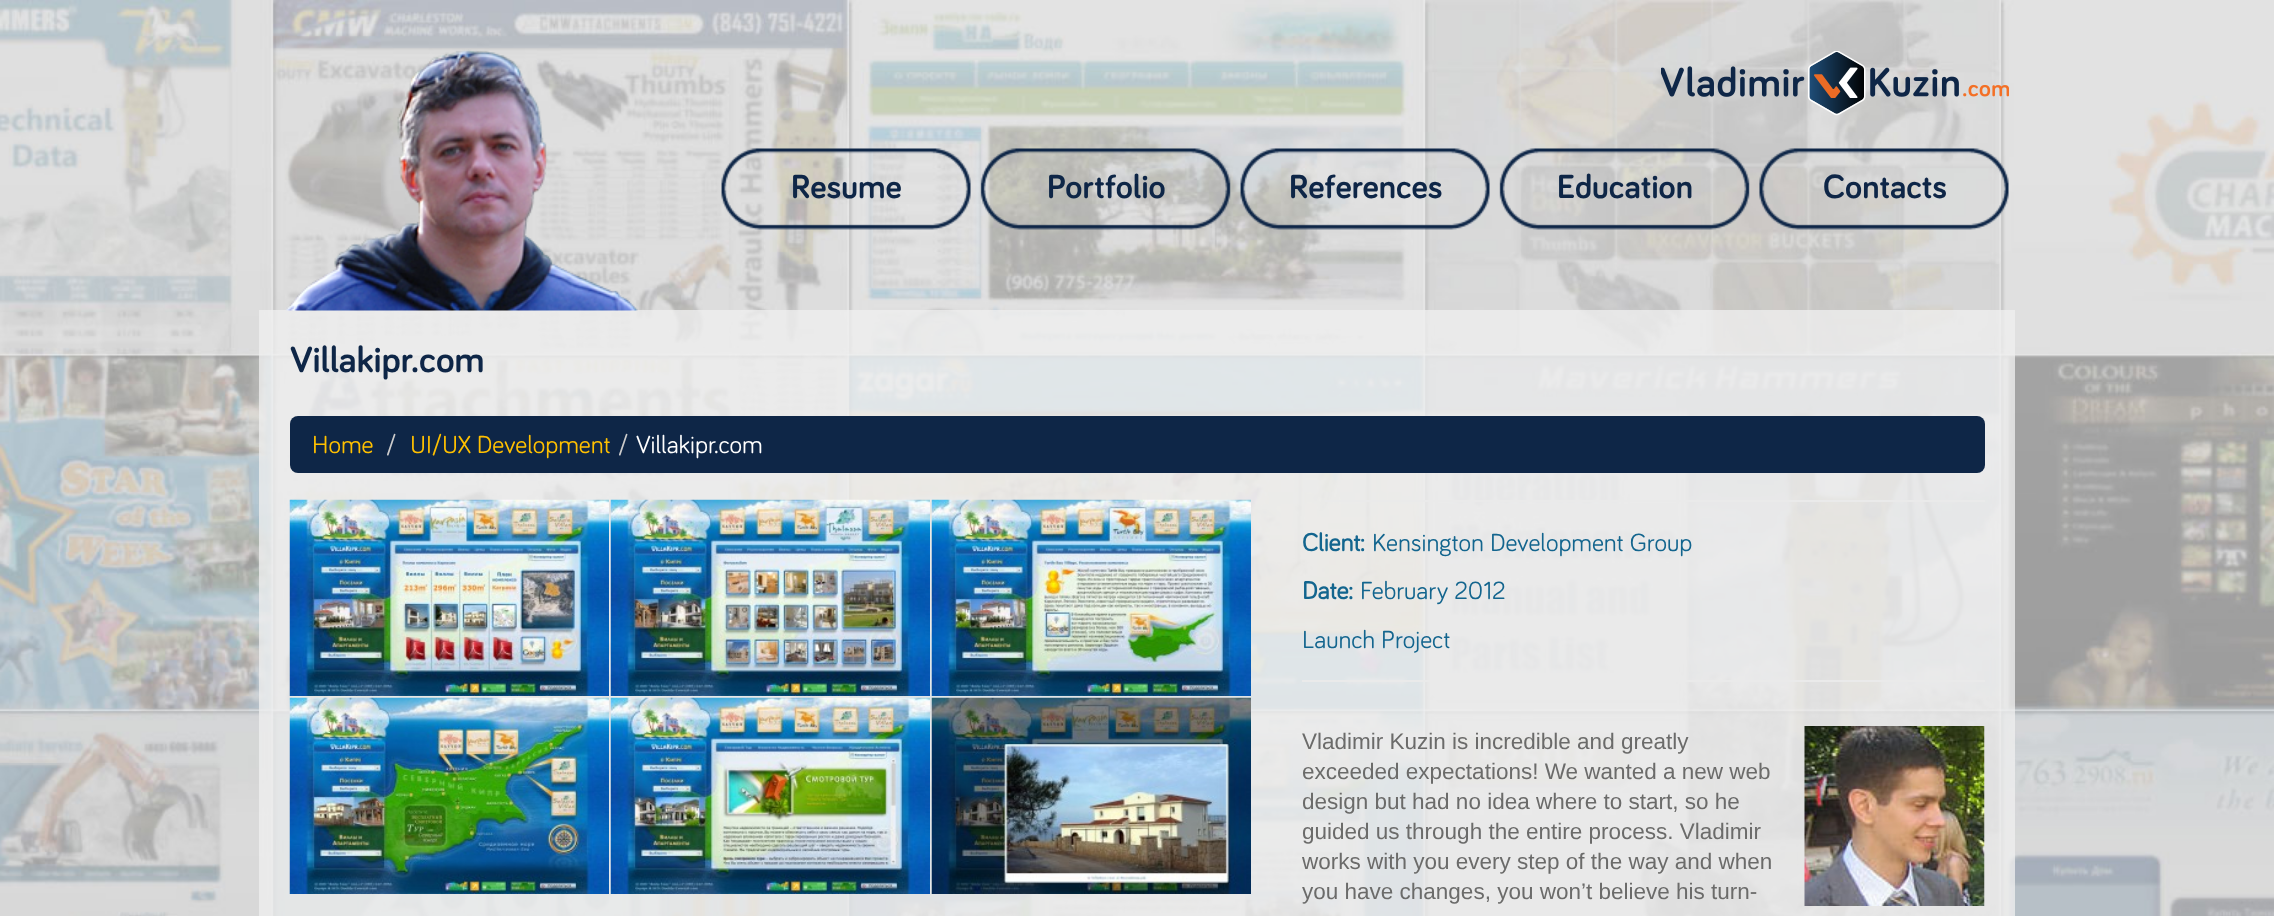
<svg xmlns="http://www.w3.org/2000/svg" width="2274" height="916" viewBox="0 0 2274 916">
  <rect width="100%" height="100%" fill="#fff"/>
  <image x="0" y="0" width="2274" height="916" href="img/1.png"/>
  <path d="M259 310h1756v606H259z" fill="#efefefc4"/>
  <image x="286" y="49" width="352" height="262" href="img/2.png"/>
  <image x="1661" y="51" width="348" height="65" href="img/3.png"/>
  <image x="721" y="148" width="250" height="82" href="img/4.png"/>
  <image x="980" y="148" width="251" height="82" href="img/5.png"/>
  <image x="1240" y="148" width="250" height="82" href="img/6.png"/>
  <image x="1499" y="148" width="251" height="82" href="img/7.png"/>
  <image x="1759" y="148" width="250" height="82" href="img/8.png"/>
  <rect x="290" y="416" width="1695" height="57" rx="8" fill="#0e2647"/>
  <image x="289" y="499" width="320" height="197" href="img/9.png"/>
  <image x="610" y="499" width="320" height="197" href="img/10.png"/>
  <image x="931" y="499" width="320" height="197" href="img/11.png"/>
  <image x="289" y="697" width="320" height="197" href="img/12.png"/>
  <image x="610" y="697" width="320" height="197" href="img/13.png"/>
  <image x="931" y="697" width="320" height="197" href="img/14.png"/>
  <path d="M1325 500h660v2H1325z" fill="#eaeaea"/>
  <path d="M1302 680h683v2H1302z" fill="#eaeaea"/>
  <image x="1804" y="726" width="181" height="180" href="img/15.png"/>
  <g font-family="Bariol" font-size="34.5" font-weight="bold" fill="#0e2647">
    <text x="791" y="198">Resume</text>
    <text x="1047" y="198">Portfolio</text>
    <text x="1289" y="198">References</text>
    <text x="1557" y="198">Education</text>
    <text x="1823" y="198">Contacts</text>
  </g>
  <text x="290" y="372" font-family="Bariol" font-size="37.5" font-weight="bold" fill="#0e2647">Villakipr.com</text>
  <text x="312" y="453" font-family="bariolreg" font-size="25.5" fill="#ffc000">Home</text>
  <text x="386" y="453" font-family="bariolreg" font-size="25.5" fill="#ccc">/</text>
  <text x="410" y="453" font-family="bariolreg" font-size="25.5" fill="#ffc000">UI/UX Development</text>
  <text x="618" y="453" font-family="bariolreg" font-size="25.5" fill="#ccc">/</text>
  <text x="636" y="453" font-family="bariolreg" font-size="25.5" fill="#fff">Villakipr.com</text>
  <text x="1302" y="551" font-family="bariolreg" font-size="25.5" font-weight="bold" fill="#13658e">Client:</text>
  <text x="1372" y="551" font-family="bariolreg" font-size="25.5" fill="#13658e">Kensington Development Group</text>
  <text x="1302" y="599" font-family="bariolreg" font-size="25.5" font-weight="bold" fill="#13658e">Date:</text>
  <g font-family="bariolreg" font-size="25.5" fill="#13658e">
    <text x="1360" y="599">February 2012</text>
    <text x="1302" y="648">Launch Project</text>
  </g>
  <g font-family="Liberation Sans" font-size="22.5" fill="#6b6b6a">
    <text x="1302" y="749">Vladimir Kuzin is incredible and greatly</text>
    <text x="1302" y="779">exceeded expectations! We wanted a new web</text>
    <text x="1302" y="809">design but had no idea where to start, so he</text>
    <text x="1302" y="839">guided us through the entire process. Vladimir</text>
    <text x="1302" y="869">works with you every step of the way and when</text>
    <text x="1302" y="899">you have changes, you won’t believe his turn-</text>
  </g>
</svg>
